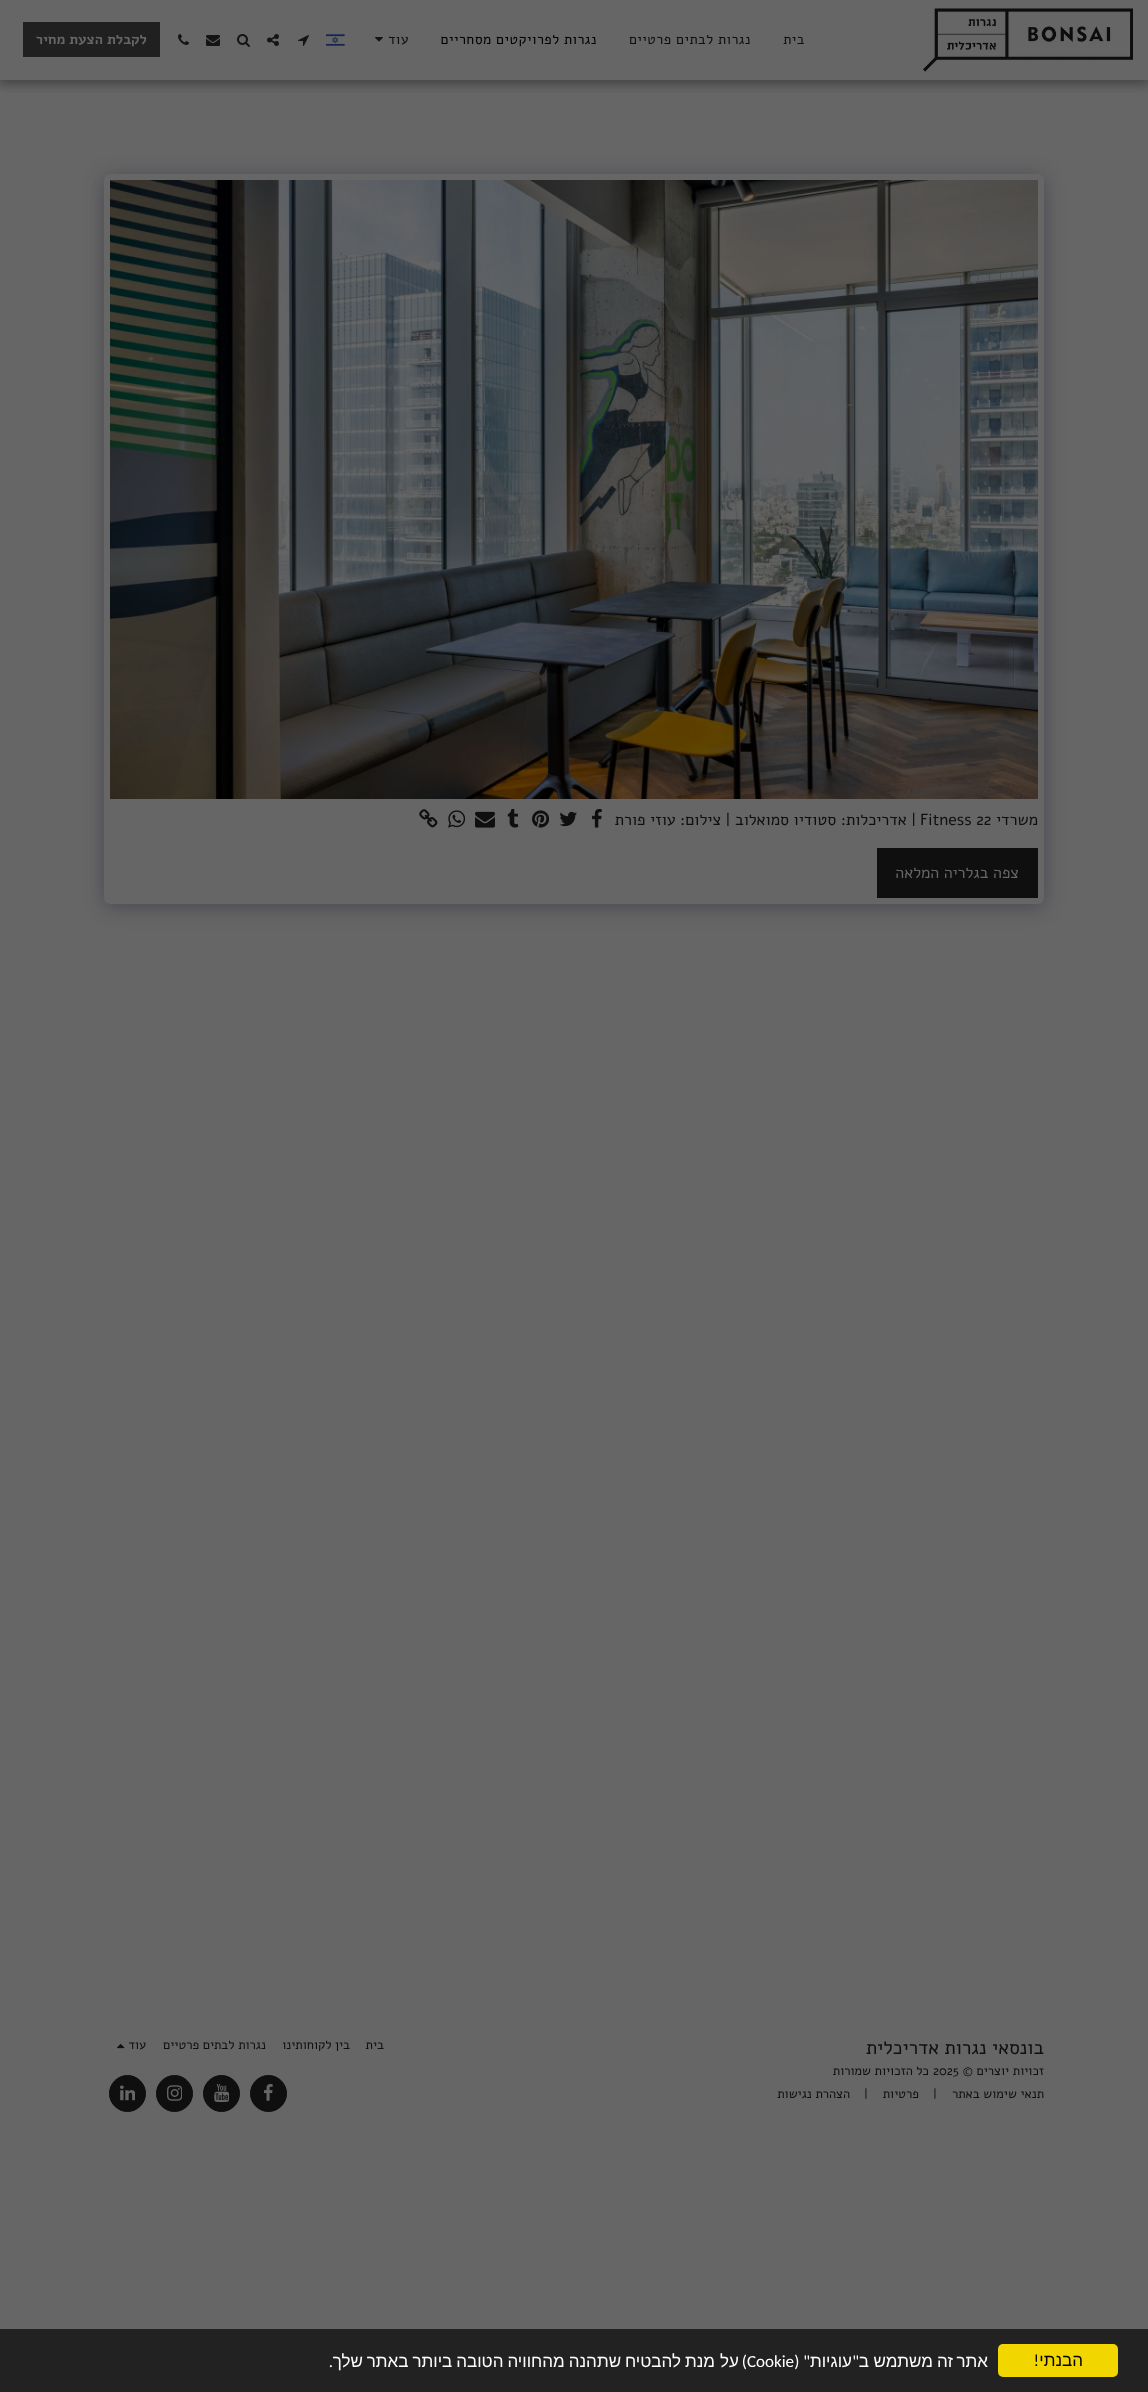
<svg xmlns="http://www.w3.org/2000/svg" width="1148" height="2392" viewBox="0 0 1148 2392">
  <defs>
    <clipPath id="clip1"><path d="M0 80h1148v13H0z"/></clipPath>
  </defs>
  <rect width="100%" height="100%" fill="#666"/>
  <g clip-path="url(#clip1)">
    <path d="M-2 0h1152v84H-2z" fill="#00000059" filter="blur(6px)"/>
  </g>
  <image x="923" y="8" width="210" height="64" href="img/1.png"/>
  <image x="375" y="37" width="8" height="5" href="img/2.png"/>
  <image x="326" y="34" width="19" height="12" href="img/3.png"/>
  <image x="298" y="35" width="11" height="11" href="img/4.png"/>
  <image x="267" y="34" width="12" height="12" href="img/5.png"/>
  <image x="237" y="34" width="13" height="13" href="img/6.png"/>
  <image x="206" y="35" width="14" height="11" href="img/7.png"/>
  <image x="178" y="34" width="11" height="11" href="img/8.png"/>
  <path d="M23 22h137v35H23z" fill="#202020"/>
  <rect x="104" y="177" width="940" height="730" rx="6" fill="#1f193166" filter="blur(10px)"/>
  <rect x="104" y="174" width="940" height="730" rx="6" fill="#666"/>
  <image x="110" y="180" width="928" height="619" href="img/9.png"/>
  <image x="592" y="809" width="10" height="19" href="img/10.png"/>
  <image x="559" y="811" width="18" height="16" href="img/11.png"/>
  <image x="532" y="810" width="17" height="18" href="img/12.png"/>
  <image x="507" y="809" width="12" height="19" href="img/13.png"/>
  <image x="475" y="811" width="20" height="17" href="img/14.png"/>
  <image x="448" y="810" width="17" height="18" href="img/15.png"/>
  <image x="419" y="809" width="19" height="19" href="img/16.png"/>
  <path d="M877 848h161v50H877z" fill="#0f0f0f"/>
  <image x="117" y="2044" width="8" height="5" href="img/17.png"/>
  <circle cx="268.5" cy="2093.5" r="18" fill="#0f0f0f" stroke="#0f0f0f"/>
  <image x="263" y="2084" width="10" height="17" href="img/18.png"/>
  <circle cx="221.5" cy="2093.5" r="18" fill="#0f0f0f" stroke="#0f0f0f"/>
  <image x="214" y="2084" width="15" height="18" href="img/19.png"/>
  <circle cx="174.5" cy="2093.5" r="18" fill="#0f0f0f" stroke="#0f0f0f"/>
  <image x="167" y="2085" width="15" height="16" href="img/20.png"/>
  <circle cx="127.5" cy="2093.5" r="18" fill="#0f0f0f" stroke="#0f0f0f"/>
  <image x="120" y="2085" width="15" height="16" href="img/21.png"/>
  <path d="M0 2329h1148v63H0z" fill="#222"/>
  <rect x="998" y="2344" width="120" height="33" rx="5" fill="#f1d600"/>
  <g font-family="Alef" font-size="14" letter-spacing="0.5" direction="rtl" fill="#0f0f0f">
    <text x="805" y="44">בית</text>
    <text x="751" y="44">נגרות לבתים פרטיים</text>
  </g>
  <text x="597" y="44" font-family="Alef" font-size="14" letter-spacing="0.5" direction="rtl" fill="#000">נגרות לפרויקטים מסחריים</text>
  <text x="409" y="44" font-family="Alef" font-size="14" letter-spacing="0.5" direction="rtl" fill="#0f0f0f">עוד</text>
  <text x="147" y="44" font-family="Alef" font-size="14" font-weight="bold" direction="rtl" fill="#666">לקבלת הצעת מחיר</text>
  <text x="1038" y="825" font-family="Alef" font-size="16" direction="rtl" fill="#0f0f0f">משרדי</text>
  <text x="920" y="825" font-family="Alef" font-size="16" fill="#0f0f0f">Fitness 22</text>
  <text x="916" y="825" font-family="Alef" font-size="16" direction="rtl" fill="#0f0f0f">| אדריכלות: סטודיו סמואלוב | צילום: עוזי פורת</text>
  <text x="1019" y="878" font-family="Alef" font-size="16" direction="rtl" fill="#666">צפה בגלריה המלאה</text>
  <text x="1044" y="2054" font-family="Alef" font-size="19.25" direction="rtl" fill="#0f0f0f">בונסאי נגרות אדריכלית</text>
  <text x="1044" y="2075" font-family="Alef" font-size="12.75" direction="rtl" fill="#0f0f0f">זכויות יוצרים ©</text>
  <text x="933" y="2075" font-family="Alef" font-size="12.75" fill="#0f0f0f">2025</text>
  <g font-family="Alef" font-size="12.75" direction="rtl" fill="#0f0f0f">
    <text x="929" y="2075">כל הזכויות שמורות</text>
    <text x="1044" y="2098">תנאי שימוש באתר</text>
  </g>
  <text x="933" y="2098" font-family="Alef" font-size="12.75" fill="#0f0f0f">|</text>
  <text x="919" y="2098" font-family="Alef" font-size="12.75" direction="rtl" fill="#0f0f0f">פרטיות</text>
  <text x="864" y="2098" font-family="Alef" font-size="12.75" fill="#0f0f0f">|</text>
  <g font-family="Alef" font-size="12.75" direction="rtl" fill="#0f0f0f">
    <text x="850" y="2098">הצהרת נגישות</text>
    <text x="384" y="2049">בית</text>
    <text x="350" y="2049">בין לקוחותינו</text>
    <text x="266" y="2049">נגרות לבתים פרטיים</text>
    <text x="146" y="2049">עוד</text>
  </g>
  <text x="1083" y="2366" font-family="Liberation Sans" font-size="17" direction="rtl" fill="#000">הבנתי</text>
  <text x="1039" y="2366" font-family="Carlito" font-size="17" direction="rtl" fill="#000">!</text>
  <g font-family="Liberation Sans" font-size="17" direction="rtl" fill="#fff">
    <text x="988" y="2367">אתר</text>
    <text x="953" y="2367">זה</text>
    <text x="933" y="2367">משתמש</text>
    <text x="869" y="2367">ב</text>
  </g>
  <text x="859" y="2367" font-family="Carlito" font-size="17" direction="rtl" fill="#fff">"</text>
  <text x="852" y="2367" font-family="Liberation Sans" font-size="17" direction="rtl" fill="#fff">עוגיות</text>
  <text x="810" y="2367" font-family="Carlito" font-size="17" direction="rtl" fill="#fff">" (</text>
  <text x="747" y="2367" font-family="Carlito" font-size="17" fill="#fff">Cookie</text>
  <text x="747" y="2367" font-family="Carlito" font-size="17" direction="rtl" fill="#fff">)</text>
  <g font-family="Liberation Sans" font-size="17" direction="rtl" fill="#fff">
    <text x="739" y="2367">על</text>
    <text x="715" y="2367" word-spacing="-0.75">מנת להבטיח שתהנה מהחוויה הטובה ביותר באתר שלך</text>
  </g>
  <text x="333" y="2367" font-family="Carlito" font-size="17" direction="rtl" fill="#fff">.</text>
</svg>
